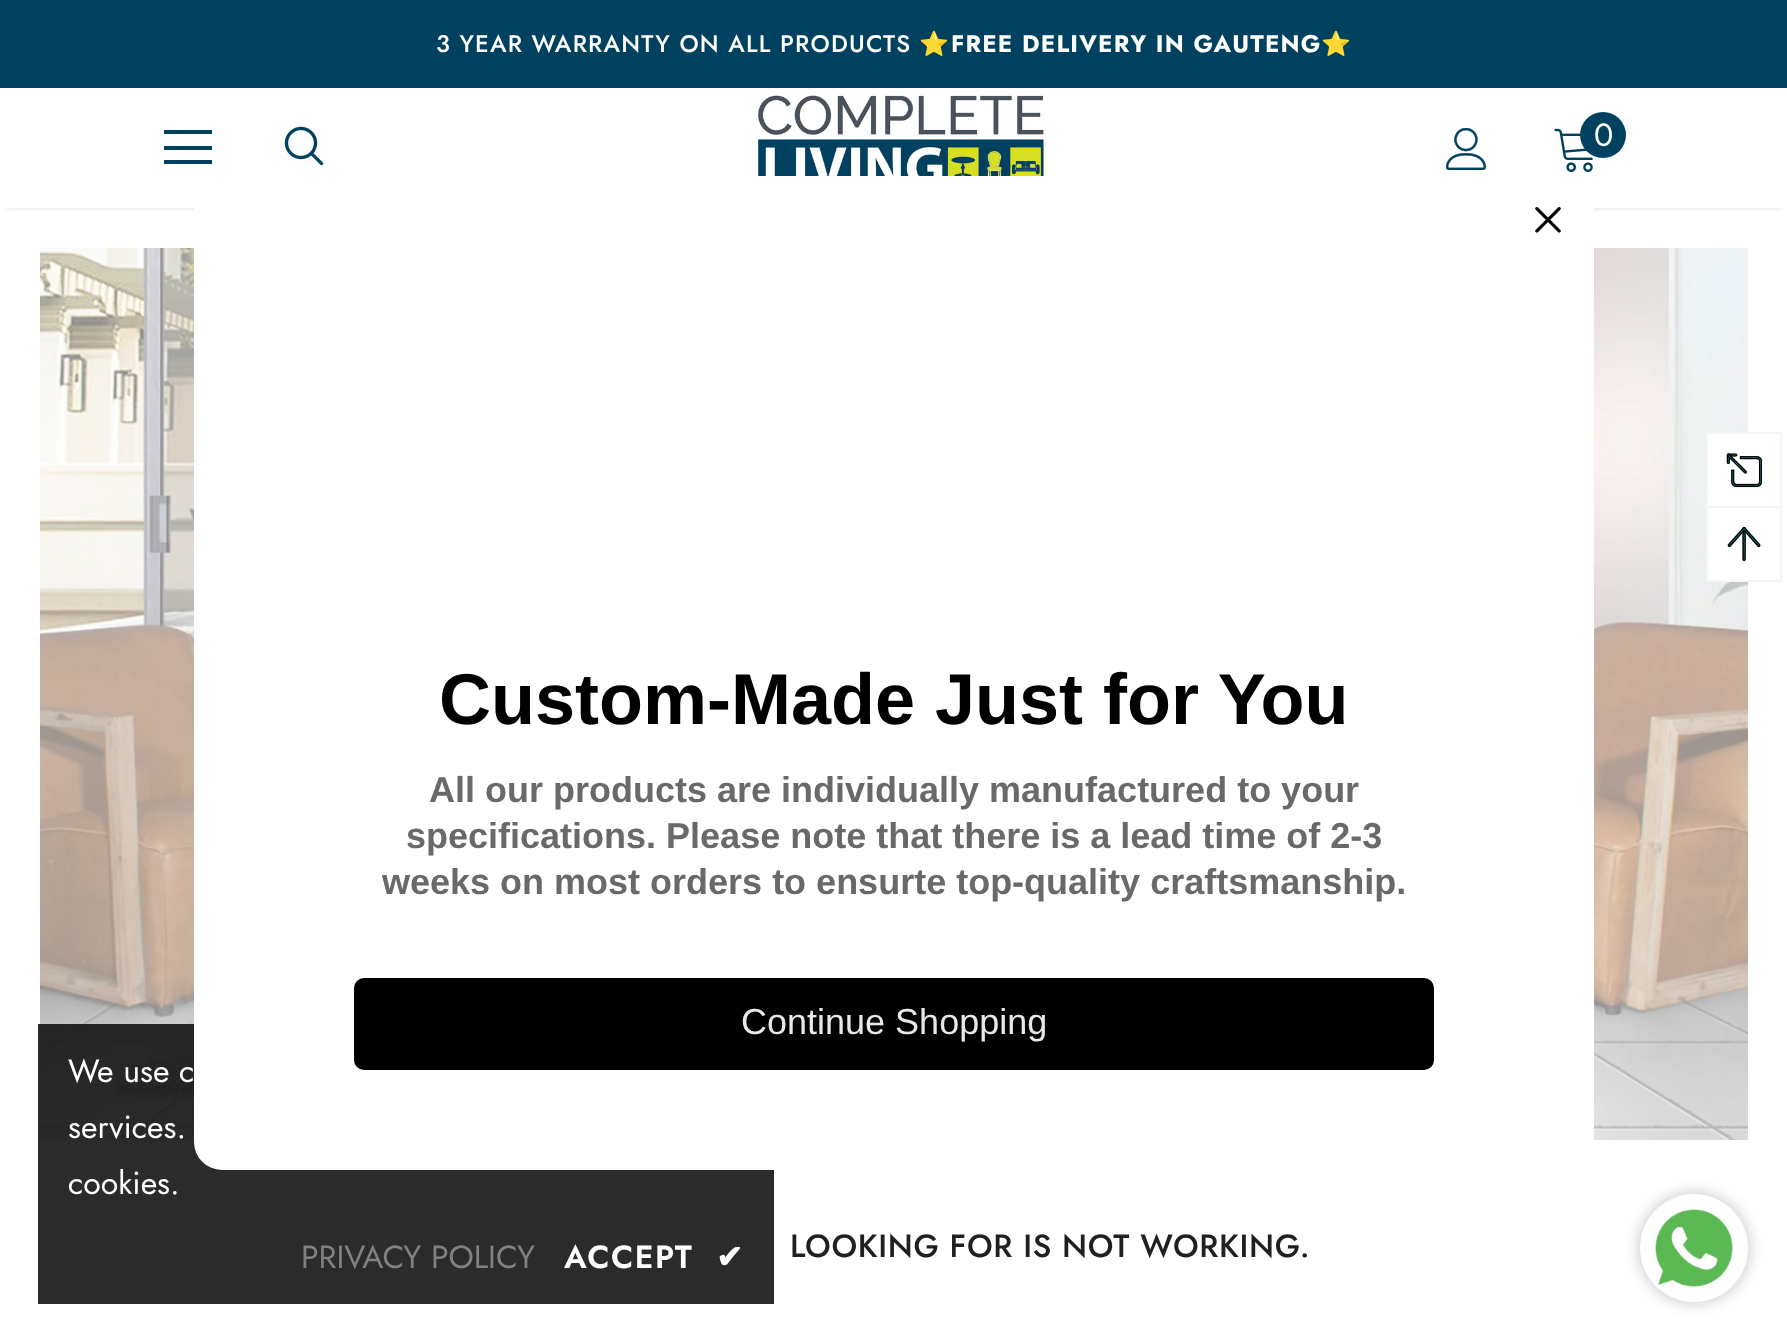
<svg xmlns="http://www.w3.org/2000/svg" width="1787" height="1342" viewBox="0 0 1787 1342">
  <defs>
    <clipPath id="clip1"><path d="M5 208h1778v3H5z"/></clipPath>
  </defs>
  <rect width="100%" height="100%" fill="#fff"/>
  <path d="M0 0h1787v88H0z" fill="#004160"/>
  <g clip-path="url(#clip1)">
    <path d="M6 100h1776v108H6z" fill="#0000001f" filter="blur(3px)"/>
  </g>
  <path d="M164 130h48v4H164z" fill="#004160"/>
  <path d="M164 146h48v4H164z" fill="#004160"/>
  <path d="M164 160h48v4H164z" fill="#004160"/>
  <image x="284" y="126" width="40" height="40" href="img/1.png"/>
  <image x="757" y="95" width="291" height="81" href="img/2.png"/>
  <image x="1446" y="128" width="41" height="42" href="img/3.png"/>
  <image x="1554" y="128" width="39" height="44" href="img/4.png"/>
  <circle cx="1603" cy="135" r="23" fill="#004160"/>
  <image x="40" y="248" width="1708" height="892" href="img/8.png"/>
  <path d="M1708 434h40v146H1708z" fill="#fff"/>
  <path d="M1706 432h76v2H1706z" fill="#f5f5f6"/>
  <path d="M1780 432h2v74H1780z" fill="#f5f5f6"/>
  <path d="M1706 432h2v74H1706z" fill="#f5f5f6"/>
  <image x="1726" y="453" width="36" height="35" href="img/5.png"/>
  <path d="M1707 507h74v74H1707z" fill="none" stroke="#f5f5f6" stroke-width="2"/>
  <image x="1727" y="526" width="34" height="36" href="img/6.png"/>
  <path d="M38 1024h736v280H38z" fill="#141414e6"/>
  <rect x="194" y="176" width="1400" height="994" rx="28" fill="#fff"/>
  <image x="1535" y="207" width="26" height="26" href="img/7.png"/>
  <rect x="356" y="980" width="1076" height="88" rx="8" fill="#000" stroke="#000" stroke-width="4"/>
  <rect x="1640" y="1194" width="108" height="108" rx="54" fill="#c2c2c2" filter="blur(8px)"/>
  <image x="1640" y="1194" width="108" height="108" href="img/9.png"/>
  <text x="436" y="52" font-family="Jost" font-size="24" font-weight="500" letter-spacing="1.2" fill="#fff">3 YEAR WARRANTY ON ALL PRODUCTS</text>
  <text x="919" y="52" font-family="Noto Color Emoji" font-size="24" letter-spacing="1.2" fill="#fff">⭐</text>
  <text x="951" y="52" font-family="Jost" font-size="24" font-weight="bold" letter-spacing="1.2" fill="#fff">FREE DELIVERY IN GAUTENG</text>
  <text x="1321" y="52" font-family="Noto Color Emoji" font-size="24" letter-spacing="1.2" fill="#fff">⭐</text>
  <text x="1594" y="146" font-family="Jost" font-size="32" fill="#fff">0</text>
  <text x="439" y="724" font-family="Liberation Sans" font-size="72" font-weight="bold" fill="#000">Custom-Made Just for You</text>
  <g font-family="Liberation Sans" font-size="36" font-weight="bold" fill="#696969">
    <text x="429" y="802">All our products are individually manufactured to your</text>
    <text x="406" y="848">specifications. Please note that there is a lead time of 2-3</text>
    <text x="382" y="894">weeks on most orders to ensurte top-quality craftsmanship.</text>
  </g>
  <text x="741" y="1034" font-family="Liberation Sans" font-size="36" fill="#e8e8e8">Continue Shopping</text>
  <g font-family="Jost" font-size="32" fill="#fff">
    <text x="68" y="1082">We use c</text>
    <text x="68" y="1138">services.</text>
    <text x="68" y="1194">cookies.</text>
  </g>
  <text x="301" y="1268" font-family="Jost" font-size="32" fill="#818181">PRIVACY POLICY</text>
  <text x="564" y="1268" font-family="Jost" font-size="32" font-weight="600" letter-spacing="1.5" fill="#fff">ACCEPT</text>
  <text x="716" y="1268" font-family="DejaVu Sans" font-size="32" font-weight="bold" letter-spacing="1.5" fill="#fff">✔</text>
  <text x="790" y="1257" font-family="Jost" font-size="32" font-weight="500" letter-spacing="0.65" fill="#202020">LOOKING FOR IS NOT WORKING.</text>
</svg>
